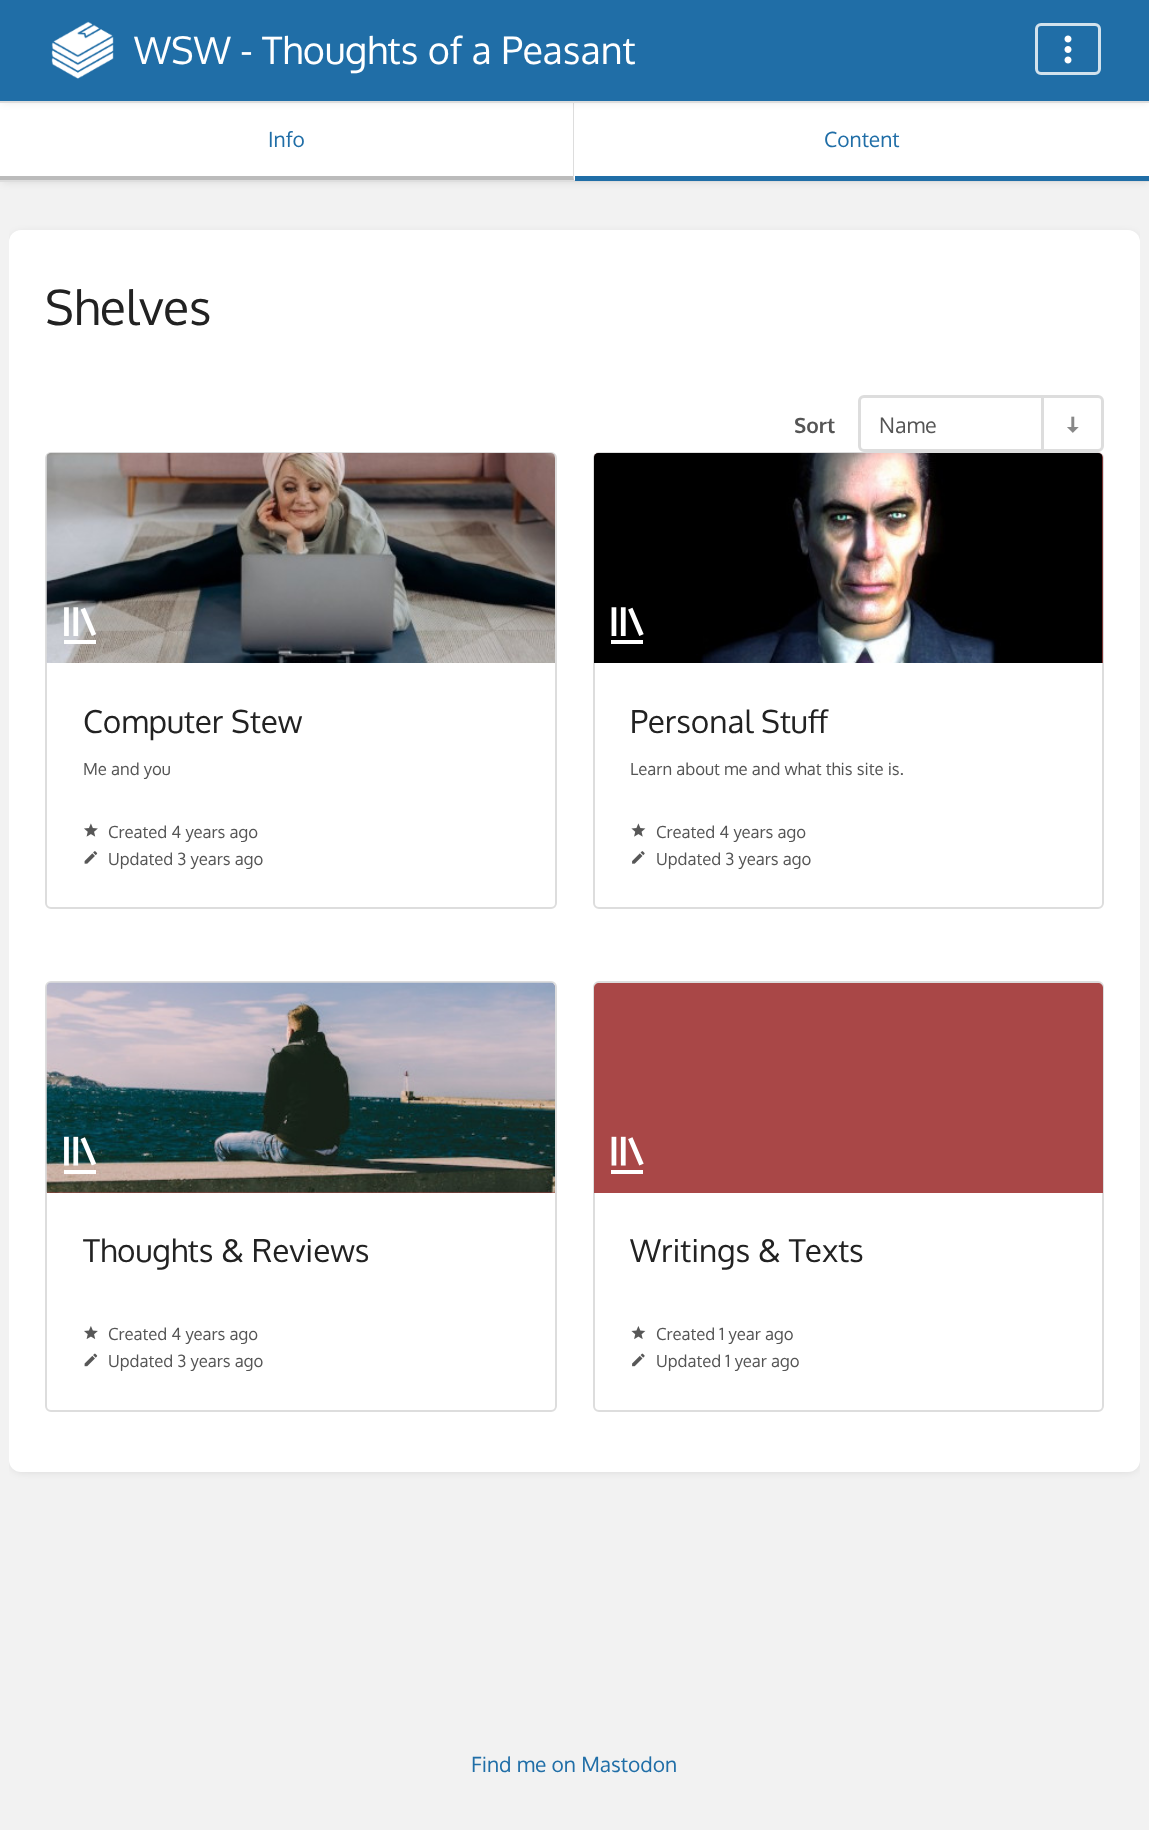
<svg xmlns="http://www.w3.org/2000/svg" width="1149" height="1830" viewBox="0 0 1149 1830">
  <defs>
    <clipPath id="clip1"><path d="M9 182h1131v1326H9z"/></clipPath>
    <clipPath id="clip2"><path d="M83 1229h436v42H83z"/></clipPath>
  </defs>
  <rect width="100%" height="100%" fill="#f2f2f2"/>
  <path d="M2 105h1146v77H2z" fill="#0000001a" filter="blur(4.5px)"/>
  <path d="M0 103h1149v77H0z" fill="#fff"/>
  <path d="M574 102V180L573 176V102Z" fill="#ddd"/>
  <path d="M2 3h1146v99H2z" fill="#0000001a" filter="blur(4.5px)"/>
  <path d="M0 0h1149v101H0z" fill="#206ea7"/>
  <path d="M0 101h1149v2H0z" fill="#ddd"/>
  <image x="51" y="21" width="63" height="58" href="img/1.png"/>
  <rect x="1036.5" y="24.5" width="63" height="49" rx="4.5" fill="none" stroke="#d2e2ed" stroke-width="3"/>
  <image x="1064" y="35" width="8" height="29" href="img/2.png"/>
  <path d="M0 180h1149v2H0z" fill="#ddd"/>
  <path d="M574 180H0V176H573Z" fill="#bbb"/>
  <path d="M575 176h574v5H575z" fill="#206ea7"/>
  <g clip-path="url(#clip1)">
    <rect x="11" y="233" width="1128" height="1239" rx="11" fill="#0000001a" filter="blur(4.5px)"/>
  </g>
  <rect x="9" y="230" width="1131" height="1242" rx="12" fill="#fff"/>
  <rect x="859.5" y="396.5" width="243" height="54" rx="4.5" fill="none" stroke="#ddd" stroke-width="3"/>
  <path d="M1041 398h3v51H1041z" fill="#ddd"/>
  <image x="1067" y="416" width="12" height="17" href="img/3.png"/>
  <rect x="46" y="453" width="510" height="455" rx="5" fill="none" stroke="#ddd" stroke-width="2"/>
  <image x="46" y="453" width="509" height="210" href="img/4.png"/>
  <image x="64" y="607" width="32" height="37" href="img/5.png"/>
  <image x="84" y="823" width="14" height="14" href="img/6.png"/>
  <image x="84" y="851" width="14" height="13" href="img/7.png"/>
  <rect x="594" y="453" width="509" height="455" rx="5" fill="none" stroke="#ddd" stroke-width="2"/>
  <path d="M599 453H1098C1101 453 1103 455 1103 458V663H594V458C594 455 596 453 599 453Z" fill="#a94747"/>
  <image x="594" y="453" width="509" height="210" href="img/8.png"/>
  <image x="611" y="607" width="33" height="37" href="img/9.png"/>
  <image x="631" y="823" width="15" height="14" href="img/10.png"/>
  <image x="632" y="851" width="13" height="13" href="img/11.png"/>
  <rect x="46" y="982" width="510" height="429" rx="5" fill="none" stroke="#ddd" stroke-width="2"/>
  <path d="M52 983H550C553 983 555 985 555 988V1193H47V988C47 985 49 983 52 983Z" fill="#a94747"/>
  <image x="46" y="982" width="509" height="211" href="img/12.png"/>
  <image x="64" y="1136" width="33" height="38" href="img/13.png"/>
  <image x="84" y="1326" width="14" height="13" href="img/14.png"/>
  <image x="84" y="1353" width="14" height="14" href="img/15.png"/>
  <rect x="594" y="982" width="509" height="429" rx="5" fill="none" stroke="#ddd" stroke-width="2"/>
  <path d="M599 983H1098C1101 983 1103 985 1103 988V1193H594V988C594 985 596 983 599 983Z" fill="#a94747"/>
  <image x="611" y="1136" width="33" height="38" href="img/16.png"/>
  <image x="631" y="1326" width="15" height="13" href="img/17.png"/>
  <image x="632" y="1353" width="13" height="14" href="img/18.png"/>
  <text x="134" y="64" font-family="Oxygen" font-size="37.75" fill="#fff">WSW - Thoughts of a Peasant</text>
  <g font-family="Oxygen" font-size="21" fill="#206ea7">
    <text x="268" y="147">Info</text>
    <text x="824" y="147">Content</text>
  </g>
  <text x="45" y="325" font-family="Oxygen" font-size="48" fill="#222">Shelves</text>
  <text x="794" y="433" font-family="Oxygen" font-size="21" font-weight="bold" fill="#555">Sort</text>
  <text x="879" y="433" font-family="Oxygen" font-size="21.5" fill="#555">Name</text>
  <text x="83" y="733" font-family="Oxygen" font-size="31.5" fill="#222">Computer Stew</text>
  <g font-family="Oxygen" font-size="16.75" fill="#555">
    <text x="83" y="775">Me and you</text>
    <text x="108" y="838">Created 4 years ago</text>
    <text x="108" y="865">Updated 3 years ago</text>
  </g>
  <text x="630" y="733" font-family="Oxygen" font-size="31.5" fill="#222">Personal Stuff</text>
  <g font-family="Oxygen" font-size="16.75" fill="#555">
    <text x="630" y="775">Learn about me and what this site is.</text>
    <text x="656" y="838">Created 4 years ago</text>
    <text x="656" y="865">Updated 3 years ago</text>
  </g>
  <g clip-path="url(#clip2)">
    <text x="83" y="1262" font-family="Oxygen" font-size="31.5" fill="#222">Thoughts &amp; Reviews</text>
  </g>
  <g font-family="Oxygen" font-size="16.75" fill="#555">
    <text x="108" y="1340">Created 4 years ago</text>
    <text x="108" y="1367">Updated 3 years ago</text>
  </g>
  <text x="630" y="1262" font-family="Oxygen" font-size="31.5" fill="#222">Writings &amp; Texts</text>
  <g font-family="Oxygen" font-size="16.75" fill="#555">
    <text x="656" y="1340">Created 1 year ago</text>
    <text x="656" y="1367">Updated 1 year ago</text>
  </g>
  <text x="471" y="1772" font-family="Oxygen" font-size="21" fill="#206ea7">Find me on Mastodon</text>
</svg>
